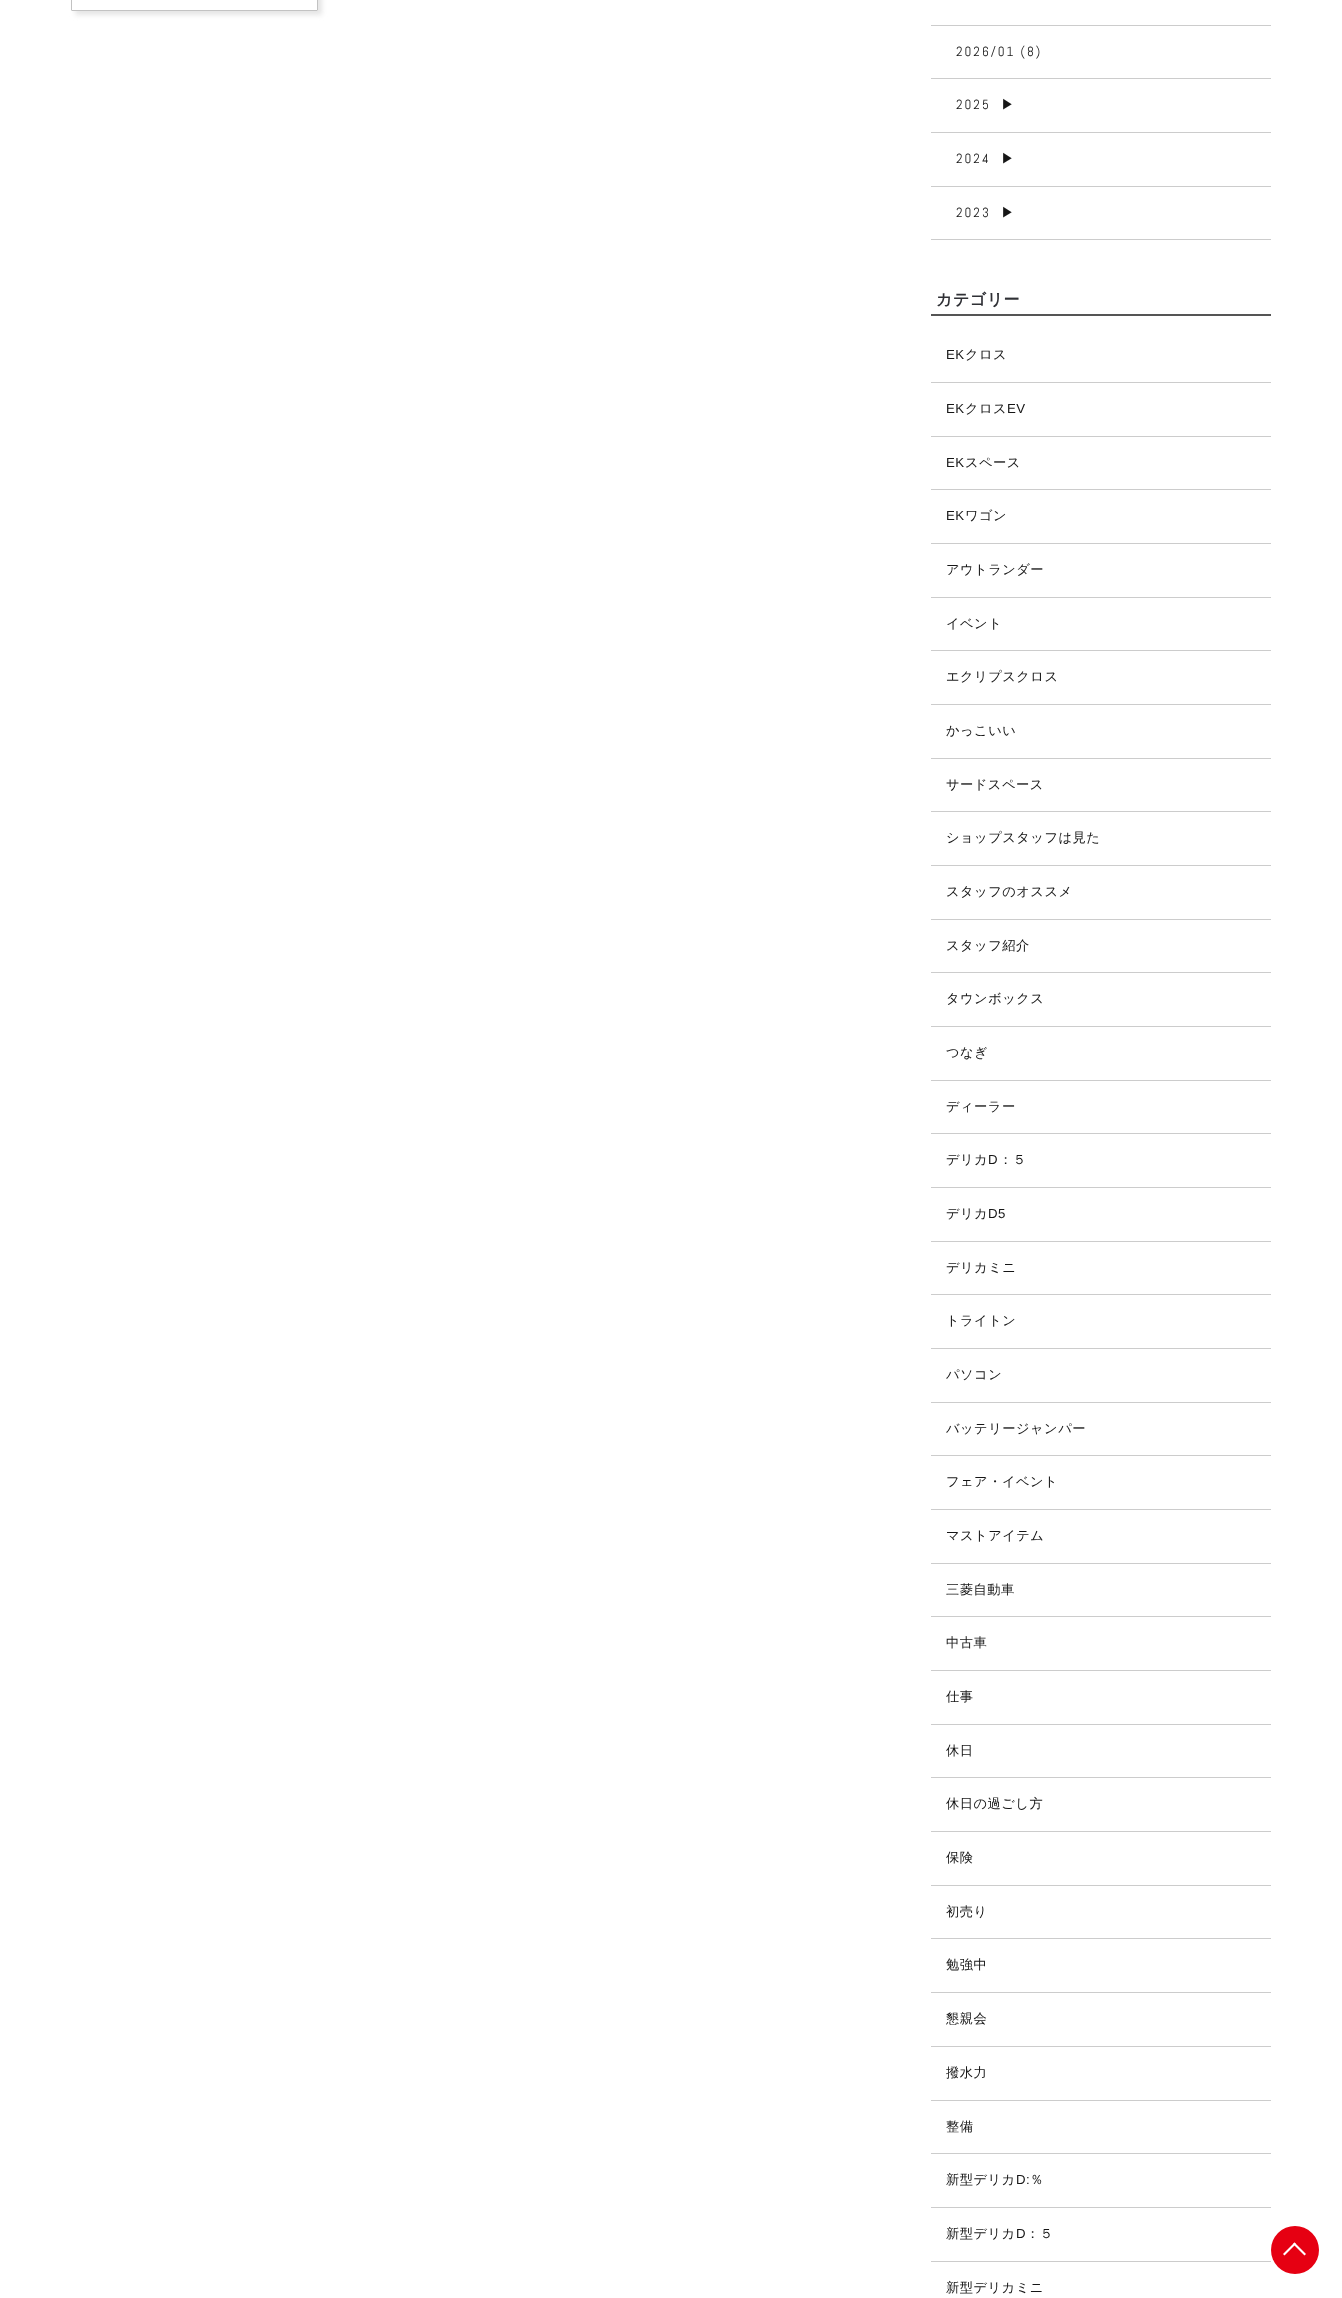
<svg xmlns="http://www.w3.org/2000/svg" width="1342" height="2298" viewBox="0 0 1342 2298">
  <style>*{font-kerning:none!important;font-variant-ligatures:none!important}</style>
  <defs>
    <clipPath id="clip1"><path d="M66 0H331V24H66ZM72-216H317C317.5-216 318-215.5 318-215V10C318 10.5 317.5 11 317 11H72C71.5 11 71 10.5 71 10V-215C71-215.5 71.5-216 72-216Z" clip-rule="evenodd"/></clipPath>
  </defs>
  <rect width="100%" height="100%" fill="#fff"/>
  <g clip-path="url(#clip1)">
    <rect x="75" y="-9" width="247" height="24" rx="1" fill="#e5e5e5" filter="blur(2.5px)"/>
  </g>
  <rect x="71.5" y="-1.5" width="246" height="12" rx="0.5" fill="none" stroke="#c2c2c2"/>
  <path d="M931 25h340v1H931z" fill="#ccc"/>
  <path d="M931 78h340v1H931z" fill="#ccc"/>
  <path d="M931 132h340v1H931z" fill="#ccc"/>
  <path d="M931 186h340v1H931z" fill="#ccc"/>
  <path d="M931 239h340v1H931z" fill="#ccc"/>
  <path d="M931 314h340v2H931z" fill="#555"/>
  <path d="M931 382h340v1H931z" fill="#ccc"/>
  <path d="M931 436h340v1H931z" fill="#ccc"/>
  <path d="M931 489h340v1H931z" fill="#ccc"/>
  <path d="M931 543h340v1H931z" fill="#ccc"/>
  <path d="M931 597h340v1H931z" fill="#ccc"/>
  <path d="M931 650h340v1H931z" fill="#ccc"/>
  <path d="M931 704h340v1H931z" fill="#ccc"/>
  <path d="M931 758h340v1H931z" fill="#ccc"/>
  <path d="M931 811h340v1H931z" fill="#ccc"/>
  <path d="M931 865h340v1H931z" fill="#ccc"/>
  <path d="M931 919h340v1H931z" fill="#ccc"/>
  <path d="M931 972h340v1H931z" fill="#ccc"/>
  <path d="M931 1026h340v1H931z" fill="#ccc"/>
  <path d="M931 1080h340v1H931z" fill="#ccc"/>
  <path d="M931 1133h340v1H931z" fill="#ccc"/>
  <path d="M931 1187h340v1H931z" fill="#ccc"/>
  <path d="M931 1241h340v1H931z" fill="#ccc"/>
  <path d="M931 1294h340v1H931z" fill="#ccc"/>
  <path d="M931 1348h340v1H931z" fill="#ccc"/>
  <path d="M931 1402h340v1H931z" fill="#ccc"/>
  <path d="M931 1455h340v1H931z" fill="#ccc"/>
  <path d="M931 1509h340v1H931z" fill="#ccc"/>
  <path d="M931 1563h340v1H931z" fill="#ccc"/>
  <path d="M931 1616h340v1H931z" fill="#ccc"/>
  <path d="M931 1670h340v1H931z" fill="#ccc"/>
  <path d="M931 1724h340v1H931z" fill="#ccc"/>
  <path d="M931 1777h340v1H931z" fill="#ccc"/>
  <path d="M931 1831h340v1H931z" fill="#ccc"/>
  <path d="M931 1885h340v1H931z" fill="#ccc"/>
  <path d="M931 1938h340v1H931z" fill="#ccc"/>
  <path d="M931 1992h340v1H931z" fill="#ccc"/>
  <path d="M931 2046h340v1H931z" fill="#ccc"/>
  <path d="M931 2100h340v1H931z" fill="#ccc"/>
  <path d="M931 2153h340v1H931z" fill="#ccc"/>
  <path d="M931 2207h340v1H931z" fill="#ccc"/>
  <path d="M931 2261h340v1H931z" fill="#ccc"/>
  <circle cx="1295" cy="2250" r="24" fill="#e60012"/>
  <path d="M1283 2254L1294.5 2242.5L1296 2244L1284.5 2255.5Z" fill="#fff"/>
  <path d="M1293 2244L1294.5 2242.5L1306 2254L1304.5 2255.5Z" fill="#fff"/>
  <g font-family="Abel" font-size="13.25" letter-spacing="2" fill="#161616">
    <text x="956" y="56">2026/01 (8)</text>
    <text x="956" y="109">2025</text>
  </g>
  <text x="1001" y="109" font-family="WenQuanYi Zen Hei" font-size="13.25" font-weight="500" letter-spacing="0.5" fill="#161616">▶︎</text>
  <text x="956" y="163" font-family="Abel" font-size="13.25" letter-spacing="2" fill="#161616">2024</text>
  <text x="1001" y="163" font-family="WenQuanYi Zen Hei" font-size="13.25" font-weight="500" letter-spacing="0.5" fill="#161616">▶︎</text>
  <text x="956" y="217" font-family="Abel" font-size="13.25" letter-spacing="2" fill="#161616">2023</text>
  <text x="1001" y="217" font-family="WenQuanYi Zen Hei" font-size="13.25" font-weight="500" letter-spacing="0.5" fill="#161616">▶︎</text>
  <text x="936" y="305" font-family="WenQuanYi Zen Hei" font-size="16" font-weight="bold" letter-spacing="0.5" fill="#2f3035">カテゴリー</text>
  <text x="946" y="359" font-family="Liberation Sans" font-size="13.25" letter-spacing="0.5" fill="#161616">EK</text>
  <text x="965" y="359" font-family="WenQuanYi Zen Hei" font-size="13.25" font-weight="500" letter-spacing="0.5" fill="#161616">クロス</text>
  <text x="946" y="413" font-family="Liberation Sans" font-size="13.25" letter-spacing="0.5" fill="#161616">EK</text>
  <text x="965" y="413" font-family="WenQuanYi Zen Hei" font-size="13.25" font-weight="500" letter-spacing="0.5" fill="#161616">クロス</text>
  <g font-family="Liberation Sans" font-size="13.25" letter-spacing="0.5" fill="#161616">
    <text x="1007" y="413">EV</text>
    <text x="946" y="467">EK</text>
  </g>
  <text x="965" y="467" font-family="WenQuanYi Zen Hei" font-size="13.25" font-weight="500" letter-spacing="0.5" fill="#161616">スペース</text>
  <text x="946" y="520" font-family="Liberation Sans" font-size="13.25" letter-spacing="0.5" fill="#161616">EK</text>
  <g font-family="WenQuanYi Zen Hei" font-size="13.25" font-weight="500" letter-spacing="0.5" fill="#161616">
    <text x="965" y="520">ワゴン</text>
    <text x="946" y="574">アウトランダー</text>
    <text x="946" y="628">イベント</text>
    <text x="946" y="681">エクリプスクロス</text>
    <text x="946" y="735">かっこいい</text>
    <text x="946" y="789">サードスペース</text>
    <text x="946" y="842">ショップスタッフは見た</text>
    <text x="946" y="896">スタッフのオススメ</text>
    <text x="946" y="950">スタッフ紹介</text>
    <text x="946" y="1003">タウンボックス</text>
    <text x="946" y="1057">つなぎ</text>
    <text x="946" y="1111">ディーラー</text>
    <text x="946" y="1164">デリカ</text>
  </g>
  <text x="988" y="1164" font-family="Liberation Sans" font-size="13.25" letter-spacing="0.5" fill="#161616">D</text>
  <g font-family="WenQuanYi Zen Hei" font-size="13.25" font-weight="500" letter-spacing="0.5" fill="#161616">
    <text x="999" y="1164">：５</text>
    <text x="946" y="1218">デリカ</text>
  </g>
  <text x="988" y="1218" font-family="Liberation Sans" font-size="13.25" letter-spacing="0.5" fill="#161616">D5</text>
  <g font-family="WenQuanYi Zen Hei" font-size="13.25" font-weight="500" letter-spacing="0.5" fill="#161616">
    <text x="946" y="1272">デリカミニ</text>
    <text x="946" y="1325">トライトン</text>
    <text x="946" y="1379">パソコン</text>
    <text x="946" y="1433">バッテリージャンパー</text>
    <text x="946" y="1486">フェア・イベント</text>
    <text x="946" y="1540">マストアイテム</text>
    <text x="946" y="1594">三菱自動車</text>
    <text x="946" y="1647">中古車</text>
    <text x="946" y="1701">仕事</text>
    <text x="946" y="1755">休日</text>
    <text x="946" y="1808">休日の過ごし方</text>
    <text x="946" y="1862">保険</text>
    <text x="946" y="1916">初売り</text>
    <text x="946" y="1969">勉強中</text>
    <text x="946" y="2023">懇親会</text>
    <text x="946" y="2077">撥水力</text>
    <text x="946" y="2131">整備</text>
    <text x="946" y="2184">新型デリカ</text>
  </g>
  <text x="1016" y="2184" font-family="Liberation Sans" font-size="13.25" letter-spacing="0.5" fill="#161616">D:</text>
  <g font-family="WenQuanYi Zen Hei" font-size="13.25" font-weight="500" letter-spacing="0.5" fill="#161616">
    <text x="1030" y="2184">％</text>
    <text x="946" y="2238">新型デリカ</text>
  </g>
  <text x="1016" y="2238" font-family="Liberation Sans" font-size="13.25" letter-spacing="0.5" fill="#161616">D</text>
  <g font-family="WenQuanYi Zen Hei" font-size="13.25" font-weight="500" letter-spacing="0.5" fill="#161616">
    <text x="1026" y="2238">：５</text>
    <text x="946" y="2292">新型デリカミニ</text>
  </g>
</svg>
